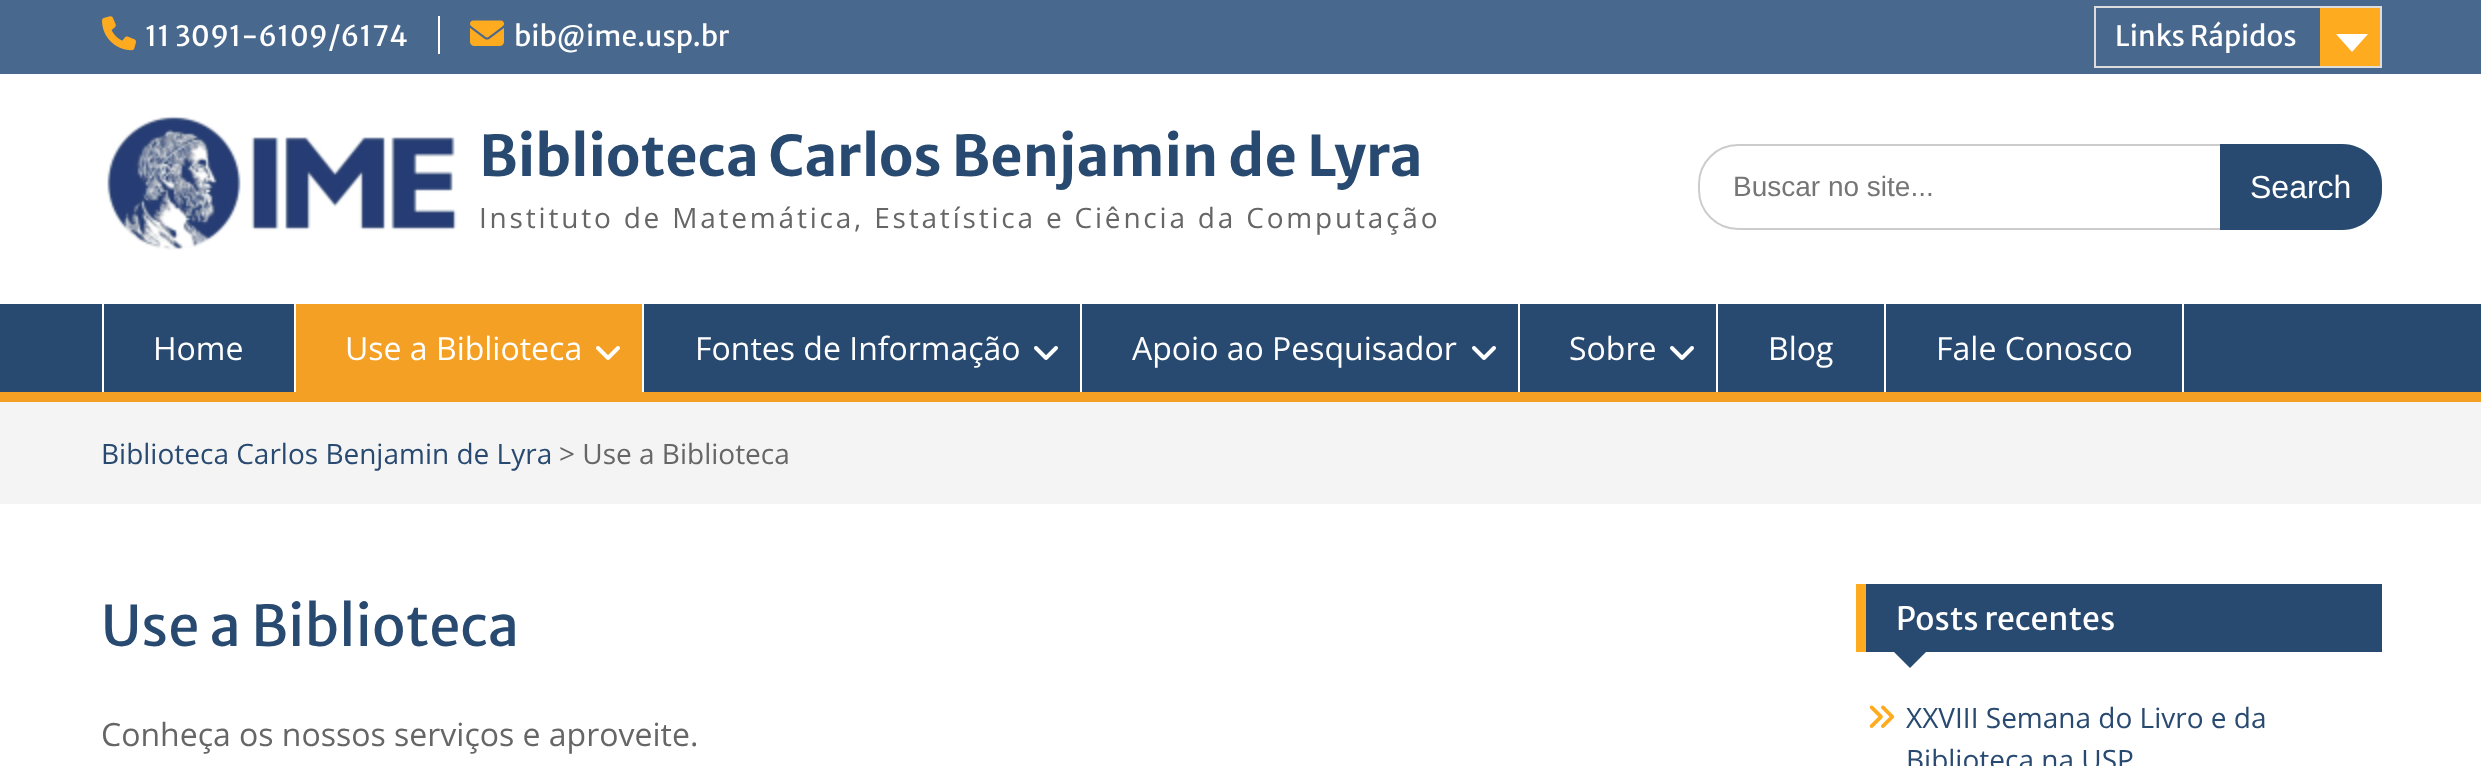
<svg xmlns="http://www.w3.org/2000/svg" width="2481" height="766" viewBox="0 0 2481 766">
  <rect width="100%" height="100%" fill="#fff"/>
  <path d="M0 0h2481v74H0z" fill="#49688e"/>
  <image x="102" y="16" width="34" height="35" href="img/1.png"/>
  <path d="M438 16h2v38H438z" fill="#fff"/>
  <image x="470" y="20" width="34" height="26" href="img/2.png"/>
  <path d="M2095 7h286v60H2095z" fill="none" stroke="#ddd" stroke-width="2"/>
  <path d="M2320 8h60v58H2320z" fill="#ffab1f"/>
  <path d="M2336 34H2368L2352 52Z" fill="#fff"/>
  <image x="107" y="116" width="350" height="134" href="img/3.png"/>
  <rect x="1699" y="145" width="682" height="84" rx="39" fill="none" stroke="#ccc" stroke-width="2"/>
  <path d="M2220 144H2342C2364 144 2382 162 2382 184V190C2382 212 2364 230 2342 230H2220Z" fill="#294a70"/>
  <path d="M0 304h2481v88H0z" fill="#294a70"/>
  <path d="M0 392h2481v10H0z" fill="#f4a024"/>
  <path d="M294 304h2v88H294z" fill="#fff"/>
  <path d="M102 304h2v88H102z" fill="#fff"/>
  <path d="M296 304h346v88H296z" fill="#f4a024"/>
  <path d="M642 304h2v88H642z" fill="#fff"/>
  <image x="596" y="346" width="24" height="14" href="img/4.png"/>
  <path d="M1080 304h2v88H1080z" fill="#fff"/>
  <image x="1034" y="346" width="24" height="14" href="img/5.png"/>
  <path d="M1518 304h2v88H1518z" fill="#fff"/>
  <image x="1472" y="346" width="24" height="14" href="img/5.png"/>
  <path d="M1716 304h2v88H1716z" fill="#fff"/>
  <image x="1670" y="346" width="24" height="14" href="img/5.png"/>
  <path d="M1884 304h2v88H1884z" fill="#fff"/>
  <path d="M2182 304h2v88H2182z" fill="#fff"/>
  <path d="M0 402h2481v102H0z" fill="#f4f4f4"/>
  <path d="M1866 584h516v68H1866z" fill="#294a70"/>
  <path d="M1856 584h10v68H1856z" fill="#ffab1f"/>
  <path d="M1892 650H1928L1910 668Z" fill="#294a70"/>
  <image x="1869" y="705" width="26" height="23" href="img/6.png"/>
  <g font-family="Merriweather Sans" font-size="28" fill="#fff">
    <text x="145" y="46">11 3091-6109/6174</text>
    <text x="514" y="46">bib@ime.usp.br</text>
    <text x="2115" y="46">Links Rápidos</text>
  </g>
  <text x="479" y="176" font-family="Merriweather Sans" font-size="56" font-weight="bold" fill="#294a70">Biblioteca Carlos Benjamin de Lyra</text>
  <text x="479" y="228" font-family="Open Sans" font-size="28" letter-spacing="2.8" fill="#666">Instituto de Matemática, Estatística e Ciência da Computação</text>
  <text x="1733" y="196" font-family="Liberation Sans" font-size="28" fill="#757575">Buscar no site...</text>
  <text x="2250" y="198" font-family="Liberation Sans" font-size="32" fill="#fff">Search</text>
  <g font-family="Open Sans" font-size="32" fill="#fff">
    <text x="153" y="360">Home</text>
    <text x="345" y="360">Use a Biblioteca</text>
    <text x="695" y="360">Fontes de Informação</text>
    <text x="1132" y="360">Apoio ao Pesquisador</text>
    <text x="1569" y="360">Sobre</text>
    <text x="1768" y="360">Blog</text>
    <text x="1936" y="360">Fale Conosco</text>
  </g>
  <text x="101" y="464" font-family="Open Sans" font-size="28" fill="#294a70">Biblioteca Carlos Benjamin de Lyra</text>
  <text x="559" y="464" font-family="Open Sans" font-size="28" fill="#666">&gt; Use a Biblioteca</text>
  <text x="101" y="646" font-family="Merriweather Sans" font-size="56" fill="#294a70">Use a Biblioteca</text>
  <text x="101" y="746" font-family="Open Sans" font-size="32" fill="#666">Conheça os nossos serviços e aproveite.</text>
  <text x="1896" y="630" font-family="Merriweather Sans" font-size="32" fill="#fff">Posts recentes</text>
  <g font-family="Open Sans" font-size="28" fill="#294a70">
    <text x="1906" y="728">XXVIII Semana do Livro e da</text>
    <text x="1906" y="770">Biblioteca na USP</text>
  </g>
</svg>
